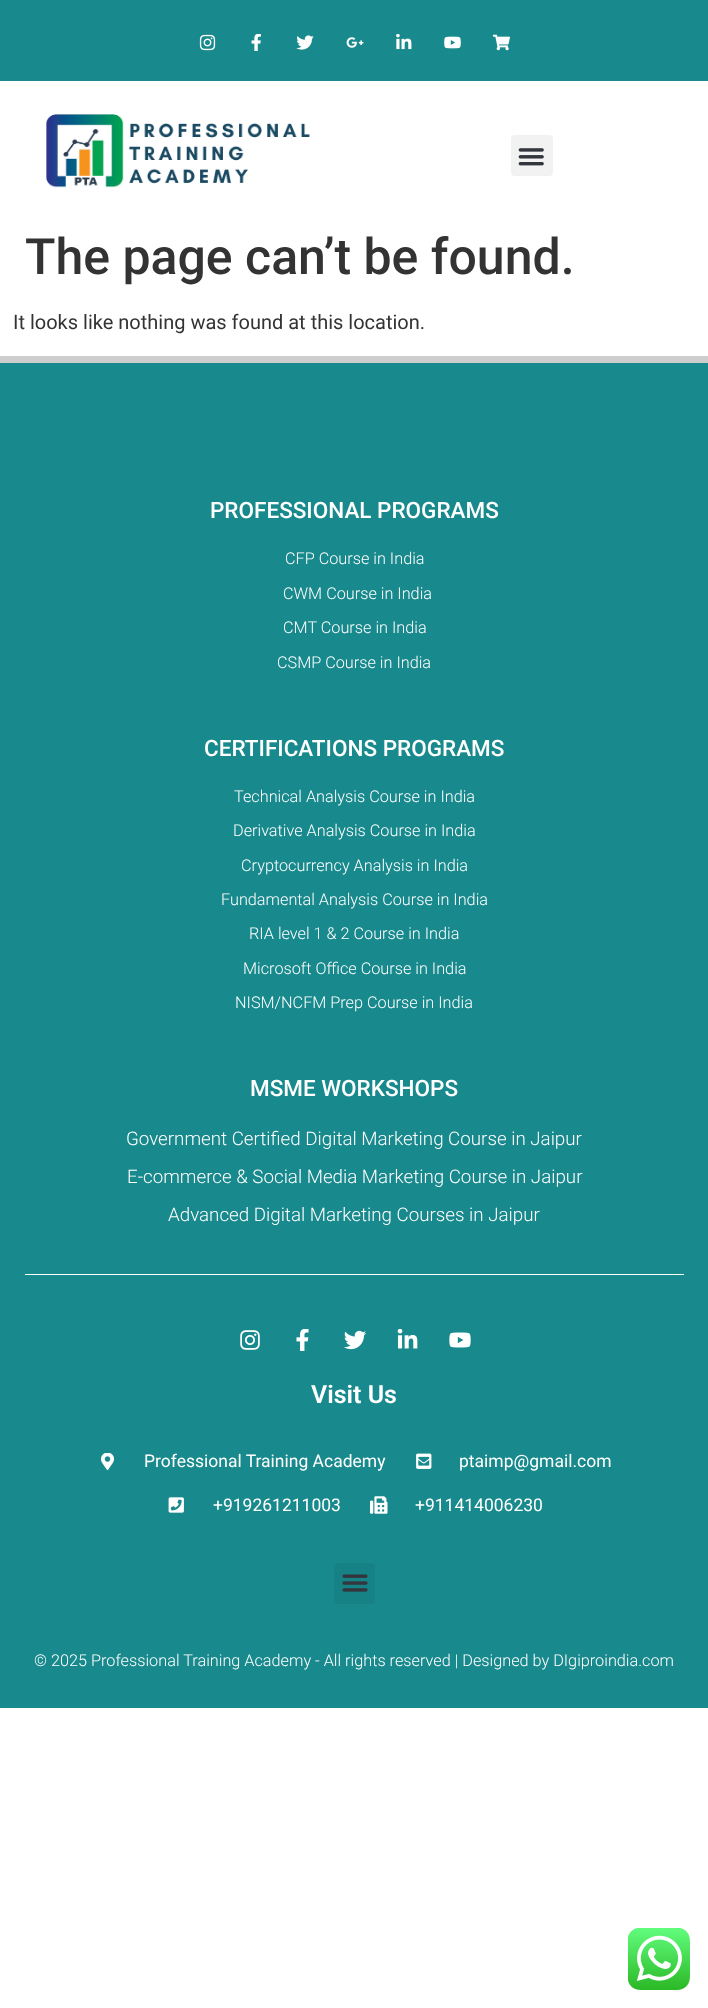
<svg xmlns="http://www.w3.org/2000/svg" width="708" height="2008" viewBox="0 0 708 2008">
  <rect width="100%" height="100%" fill="#fff"/>
  <path d="M0 0h708v81H0z" fill="#18898c"/>
  <image x="199" y="34" width="17" height="17" href="img/1.png"/>
  <image x="251" y="34" width="10" height="17" href="img/2.png"/>
  <image x="296" y="35" width="18" height="15" href="img/3.png"/>
  <image x="346" y="37" width="18" height="11" href="img/4.png"/>
  <image x="396" y="34" width="16" height="16" href="img/5.png"/>
  <image x="444" y="36" width="17" height="13" href="img/6.png"/>
  <image x="493" y="34" width="17" height="17" href="img/7.png"/>
  <image x="46" y="114" width="264" height="74" href="img/8.png"/>
  <rect x="511" y="135" width="42" height="41" rx="4" fill="#f2f2f2"/>
  <image x="518" y="148" width="26" height="18" href="img/9.png"/>
  <path d="M0 363h708v1345H0z" fill="#18898c"/>
  <path d="M0 356h708v7H0z" fill="#cecece"/>
  <path d="M25 1274h659v1H25z" fill="#fff"/>
  <image x="240" y="1330" width="20" height="20" href="img/10.png"/>
  <image x="296" y="1329" width="13" height="22" href="img/11.png"/>
  <image x="344" y="1330" width="22" height="20" href="img/12.png"/>
  <image x="397" y="1329" width="21" height="20" href="img/13.png"/>
  <image x="449" y="1332" width="22" height="16" href="img/14.png"/>
  <image x="101" y="1453" width="13" height="17" href="img/15.png"/>
  <image x="416" y="1453" width="16" height="16" href="img/16.png"/>
  <image x="168" y="1497" width="16" height="16" href="img/17.png"/>
  <image x="370" y="1496" width="18" height="18" href="img/18.png"/>
  <rect x="334" y="1563" width="41" height="41" rx="4" fill="#178285"/>
  <image x="342" y="1574" width="26" height="18" href="img/19.png"/>
  <image x="628" y="1928" width="62" height="62" href="img/20.png"/>
  <text x="25" y="274" font-family="Roboto" font-size="50" font-weight="500" fill="#333">The page can’t be found.</text>
  <text x="13" y="329" font-family="Roboto" font-size="20" fill="#333">It looks like nothing was found at this location.</text>
  <text x="210" y="518" font-family="Roboto" font-size="22.5" font-weight="500" fill="#fff">PROFESSIONAL PROGRAMS</text>
  <g font-family="Roboto" font-size="16.25" font-weight="300" fill="#fff">
    <text x="285" y="564">CFP Course in India</text>
    <text x="283" y="599">CWM Course in India</text>
    <text x="283" y="633">CMT Course in India</text>
    <text x="277" y="668">CSMP Course in India</text>
  </g>
  <text x="204" y="756" font-family="Roboto" font-size="22.5" font-weight="500" fill="#fff">CERTIFICATIONS PROGRAMS</text>
  <g font-family="Roboto" font-size="16.25" font-weight="300" fill="#fff">
    <text x="234" y="802">Technical Analysis Course in India</text>
    <text x="233" y="836">Derivative Analysis Course in India</text>
    <text x="241" y="871">Cryptocurrency Analysis in India</text>
    <text x="221" y="905">Fundamental Analysis Course in India</text>
    <text x="249" y="939">RIA level 1 &amp; 2 Course in India</text>
    <text x="243" y="974">Microsoft Office Course in India</text>
    <text x="235" y="1008">NISM/NCFM Prep Course in India</text>
  </g>
  <text x="250" y="1096" font-family="Roboto" font-size="22.5" font-weight="500" fill="#fff">MSME WORKSHOPS</text>
  <g font-family="Roboto" font-size="18.75" font-weight="300" fill="#fff">
    <text x="126" y="1145">Government Certified Digital Marketing Course in Jaipur</text>
    <text x="127" y="1183">E-commerce &amp; Social Media Marketing Course in Jaipur</text>
    <text x="168" y="1221">Advanced Digital Marketing Courses in Jaipur</text>
  </g>
  <text x="311" y="1403" font-family="Roboto" font-size="25" font-weight="600" fill="#fff">Visit Us</text>
  <g font-family="Roboto" font-size="17.5" fill="#fff">
    <text x="144" y="1467">Professional Training Academy</text>
    <text x="459" y="1467">ptaimp@gmail.com</text>
    <text x="213" y="1511">+919261211003</text>
    <text x="415" y="1511">+911414006230</text>
  </g>
  <text x="34" y="1666" font-family="Roboto" font-size="16.25" font-weight="300" fill="#fff">© 2025 Professional Training Academy - All rights reserved | Designed by DIgiproindia.com</text>
</svg>
